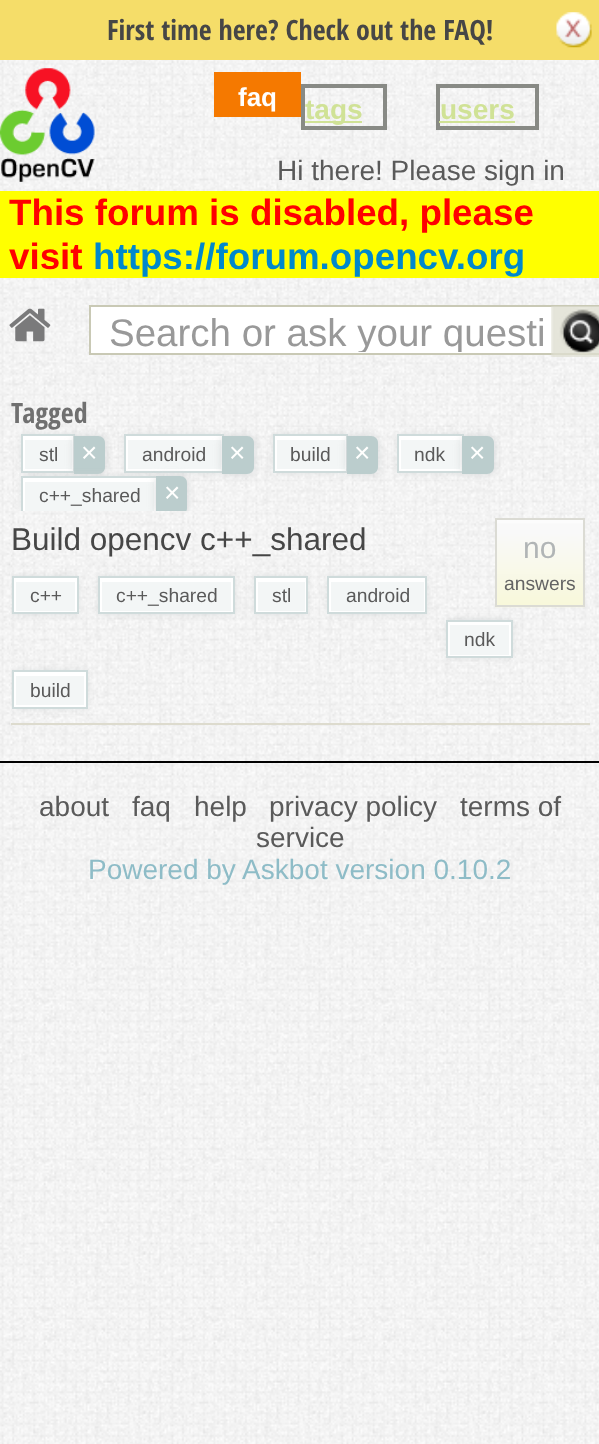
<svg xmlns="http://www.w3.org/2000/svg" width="599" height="1444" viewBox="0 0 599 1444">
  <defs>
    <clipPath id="clip1"><path d="M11 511h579v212H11z"/></clipPath>
    <clipPath id="clip2"><path d="M109 312h481v40H109z"/></clipPath>
  </defs>
  <rect width="100%" height="100%" fill="#fff"/>
  <image x="0" y="278" width="599" height="1166" href="img/1.png"/>
  <path d="M0 0h599v60H0z" fill="#f5dd69"/>
  <image x="556" y="12" width="36" height="36" href="img/2.png"/>
  <image x="0" y="60" width="599" height="131" href="img/3.png"/>
  <image x="0" y="68" width="95" height="114" href="img/4.png"/>
  <path d="M214 72h87v45H214z" fill="#f57900"/>
  <path d="M303 86h82v42H303z" fill="none" stroke="#888a85" stroke-width="4"/>
  <path d="M305 121h57v2H305z" fill="#d0e296"/>
  <path d="M438 86h99v42H438z" fill="none" stroke="#888a85" stroke-width="4"/>
  <path d="M439 121h76v2H439z" fill="#d0e296"/>
  <path d="M0 191h599v87H0z" fill="#ff0"/>
  <image x="9" y="308" width="42" height="34" href="img/5.png"/>
  <path d="M90 306h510v48H90z" fill="#fff" stroke="#c9c9b5" stroke-width="2"/>
  <image x="551" y="306" width="48" height="51" href="img/6.png"/>
  <path d="M23 436h51v35H23z" fill="#d3d6d7" filter="blur(4.5px)"/>
  <path d="M25 440h47v29H25z" fill="#f3f6f6"/>
  <path d="M23 436h51v4H23z" fill="#fff"/>
  <path d="M72 436h1v35H72z" fill="#fff"/>
  <path d="M23 469h51v2H23z" fill="#fff"/>
  <path d="M23 436h2v35H23z" fill="#fff"/>
  <path d="M22 435h52v37H22z" fill="none" stroke="#cfdbdb" stroke-width="2"/>
  <rect x="74" y="436" width="31" height="38" rx="7" fill="#d3d6d7" filter="blur(4.5px)"/>
  <path d="M74 436H98C102 436 105 439 105 443V467C105 471 102 474 98 474H74Z" fill="#bbcdcd"/>
  <path d="M126 436h96v35H126z" fill="#d3d6d7" filter="blur(4.5px)"/>
  <path d="M128 440h93v29H128z" fill="#f3f6f6"/>
  <path d="M126 436h96v4H126z" fill="#fff"/>
  <path d="M221 436h1v35H221z" fill="#fff"/>
  <path d="M126 469h96v2H126z" fill="#fff"/>
  <path d="M126 436h2v35H126z" fill="#fff"/>
  <path d="M125 435h98v37H125z" fill="none" stroke="#cfdbdb" stroke-width="2"/>
  <rect x="222" y="436" width="32" height="38" rx="7" fill="#d3d6d7" filter="blur(4.5px)"/>
  <path d="M222 436H247C251 436 254 439 254 443V467C254 471 251 474 247 474H222Z" fill="#bbcdcd"/>
  <path d="M275 436h72v35H275z" fill="#d3d6d7" filter="blur(4.5px)"/>
  <path d="M277 440h68v29H277z" fill="#f3f6f6"/>
  <path d="M275 436h72v4H275z" fill="#fff"/>
  <path d="M345 436h1v35H345z" fill="#fff"/>
  <path d="M275 469h72v2H275z" fill="#fff"/>
  <path d="M275 436h2v35H275z" fill="#fff"/>
  <path d="M274 435h73v37H274z" fill="none" stroke="#cfdbdb" stroke-width="2"/>
  <rect x="347" y="436" width="31" height="38" rx="7" fill="#d3d6d7" filter="blur(4.5px)"/>
  <path d="M347 436H371C375 436 378 439 378 443V467C378 471 375 474 371 474H347Z" fill="#bbcdcd"/>
  <path d="M399 436h63v35H399z" fill="#d3d6d7" filter="blur(4.5px)"/>
  <path d="M401 440h59v29H401z" fill="#f3f6f6"/>
  <path d="M399 436h63v4H399z" fill="#fff"/>
  <path d="M460 436h2v35H460z" fill="#fff"/>
  <path d="M399 469h63v2H399z" fill="#fff"/>
  <path d="M399 436h2v35H399z" fill="#fff"/>
  <path d="M398 435h65v37H398z" fill="none" stroke="#cfdbdb" stroke-width="2"/>
  <rect x="462" y="436" width="32" height="38" rx="7" fill="#d3d6d7" filter="blur(4.5px)"/>
  <path d="M462 436H487C491 436 494 439 494 443V467C494 471 491 474 487 474H462Z" fill="#bbcdcd"/>
  <path d="M23 478h133v35H23z" fill="#d3d6d7" filter="blur(4.5px)"/>
  <path d="M25 482h129v29H25z" fill="#f3f6f6"/>
  <path d="M23 478h133v4H23z" fill="#fff"/>
  <path d="M154 478h2v35H154z" fill="#fff"/>
  <path d="M23 478h2v35H23z" fill="#fff"/>
  <path d="M22 477h135v37H22z" fill="none" stroke="#cfdbdb" stroke-width="2"/>
  <rect x="156" y="476" width="31" height="39" rx="7" fill="#d3d6d7" filter="blur(4.5px)"/>
  <path d="M156 476H180C184 476 187 479 187 483V508C187 512 184 515 180 515H156Z" fill="#bbcdcd"/>
  <image x="10" y="511" width="580" height="216" href="img/7.png"/>
  <path d="M11 723h579v2H11z" fill="#dddbce"/>
  <image x="495" y="520" width="90" height="88" href="img/8.png"/>
  <path d="M496 519h88v87H496z" fill="none" stroke="#dbdbd4" stroke-width="2"/>
  <g clip-path="url(#clip1)">
    <path d="M14 578h63v35H14z" fill="#d3d6d7" filter="blur(4.5px)"/>
  </g>
  <path d="M16 582h59v29H16z" fill="#f3f6f6"/>
  <path d="M14 578h63v4H14z" fill="#fff"/>
  <path d="M75 578h2v35H75z" fill="#fff"/>
  <path d="M14 611h63v1H14z" fill="#fff"/>
  <path d="M14 578h2v35H14z" fill="#fff"/>
  <path d="M13 577h65v36H13z" fill="none" stroke="#cfdbdb" stroke-width="2"/>
  <path d="M100 578h133v35H100z" fill="#d3d6d7" filter="blur(4.5px)"/>
  <path d="M102 582h129v29H102z" fill="#f3f6f6"/>
  <path d="M100 578h133v4H100z" fill="#fff"/>
  <path d="M231 578h2v35H231z" fill="#fff"/>
  <path d="M100 611h133v1H100z" fill="#fff"/>
  <path d="M100 578h2v35H100z" fill="#fff"/>
  <path d="M99 577h135v36H99z" fill="none" stroke="#cfdbdb" stroke-width="2"/>
  <path d="M256 578h50v35H256z" fill="#d3d6d7" filter="blur(4.5px)"/>
  <path d="M258 582h47v29H258z" fill="#f3f6f6"/>
  <path d="M256 578h50v4H256z" fill="#fff"/>
  <path d="M305 578h1v35H305z" fill="#fff"/>
  <path d="M256 611h50v1H256z" fill="#fff"/>
  <path d="M256 578h2v35H256z" fill="#fff"/>
  <path d="M255 577h52v36H255z" fill="none" stroke="#cfdbdb" stroke-width="2"/>
  <path d="M329 578h96v35H329z" fill="#d3d6d7" filter="blur(4.5px)"/>
  <path d="M331 582h93v29H331z" fill="#f3f6f6"/>
  <path d="M329 578h96v4H329z" fill="#fff"/>
  <path d="M424 578h1v35H424z" fill="#fff"/>
  <path d="M329 611h96v1H329z" fill="#fff"/>
  <path d="M329 578h2v35H329z" fill="#fff"/>
  <path d="M328 577h98v36H328z" fill="none" stroke="#cfdbdb" stroke-width="2"/>
  <path d="M448 621h63v35H448z" fill="#d3d6d7" filter="blur(4.5px)"/>
  <path d="M450 625h59v30H450z" fill="#f3f6f6"/>
  <path d="M448 622h63v3H448z" fill="#fff"/>
  <path d="M509 621h2v35H509z" fill="#fff"/>
  <path d="M448 655h63v1H448z" fill="#fff"/>
  <path d="M448 621h2v35H448z" fill="#fff"/>
  <path d="M447 621h65v36H447z" fill="none" stroke="#cfdbdb" stroke-width="2"/>
  <g clip-path="url(#clip1)">
    <path d="M14 672h72v35H14z" fill="#d3d6d7" filter="blur(4.5px)"/>
  </g>
  <path d="M16 676h68v29H16z" fill="#f3f6f6"/>
  <path d="M14 672h72v4H14z" fill="#fff"/>
  <path d="M84 672h2v35H84z" fill="#fff"/>
  <path d="M14 705h72v2H14z" fill="#fff"/>
  <path d="M14 672h2v35H14z" fill="#fff"/>
  <path d="M13 671h74v37H13z" fill="none" stroke="#cfdbdb" stroke-width="2"/>
  <image x="0" y="763" width="599" height="149" href="img/9.png"/>
  <path d="M0 761h599v2H0z" fill="#000"/>
  <text x="107" y="40" font-family="Open Sans Condensed" font-size="28" font-weight="bold" fill="#464646">First time here? Check out the FAQ!</text>
  <text x="238" y="106" font-family="Liberation Sans" font-size="26" font-weight="bold" fill="#fffffe">faq</text>
  <g font-family="Liberation Sans" font-size="28" font-weight="bold" fill="#d0e296">
    <text x="305" y="119">tags</text>
    <text x="440" y="119">users</text>
  </g>
  <text x="277" y="180" font-family="Liberation Sans" font-size="28" fill="#5a5a5a">Hi there! Please sign in</text>
  <g font-family="Liberation Sans" font-size="36.75" font-weight="bold" fill="#f00">
    <text x="9" y="225">This forum is disabled, please</text>
    <text x="9" y="269">visit</text>
  </g>
  <text x="93" y="269" font-family="Liberation Sans" font-size="36.75" font-weight="bold" fill="#08c">https://forum.opencv.org</text>
  <g clip-path="url(#clip2)">
    <text x="109" y="346" font-family="Liberation Sans" font-size="38.5" fill="#999">Search or ask your questi</text>
  </g>
  <text x="11" y="423" font-family="Open Sans Condensed" font-size="28" font-weight="bold" fill="#707070">Tagged</text>
  <text x="39" y="461" font-family="Liberation Sans" font-size="19.25" fill="#5a5a5a">stl</text>
  <text x="81" y="462" font-family="Liberation Sans" font-size="28" fill="#fffffe">×</text>
  <text x="142" y="461" font-family="Liberation Sans" font-size="19.25" fill="#5a5a5a">android</text>
  <text x="229" y="462" font-family="Liberation Sans" font-size="28" fill="#fffffe">×</text>
  <text x="290" y="461" font-family="Liberation Sans" font-size="19.25" fill="#5a5a5a">build</text>
  <text x="354" y="462" font-family="Liberation Sans" font-size="28" fill="#fffffe">×</text>
  <text x="414" y="461" font-family="Liberation Sans" font-size="19.25" fill="#5a5a5a">ndk</text>
  <text x="469" y="462" font-family="Liberation Sans" font-size="28" fill="#fffffe">×</text>
  <text x="39" y="502" font-family="Liberation Sans" font-size="19.25" fill="#5a5a5a">c++_shared</text>
  <text x="164" y="502" font-family="Liberation Sans" font-size="28" fill="#fffffe">×</text>
  <text x="11" y="550" font-family="Liberation Sans" font-size="31.5" fill="#464646">Build opencv c++_shared</text>
  <text x="523" y="558" font-family="Liberation Sans" font-size="30" fill="#b1b5b6">no</text>
  <text x="504" y="590" font-family="Liberation Sans" font-size="19.25" fill="#646464">answers</text>
  <g font-family="Liberation Sans" font-size="19.25" fill="#5a5a5a">
    <text x="30" y="602">c++</text>
    <text x="116" y="602">c++_shared</text>
    <text x="272" y="602">stl</text>
    <text x="346" y="602">android</text>
    <text x="464" y="646">ndk</text>
    <text x="30" y="697">build</text>
  </g>
  <g font-family="Liberation Sans" font-size="28" fill="#5a5a5a">
    <text x="39" y="816">about</text>
    <text x="132" y="816">faq</text>
    <text x="194" y="816">help</text>
    <text x="269" y="816">privacy policy</text>
    <text x="460" y="816">terms of</text>
    <text x="256" y="847">service</text>
  </g>
  <text x="88" y="879" font-family="Liberation Sans" font-size="28" fill="#8ebcc7">Powered by Askbot version 0.10.2</text>
</svg>
